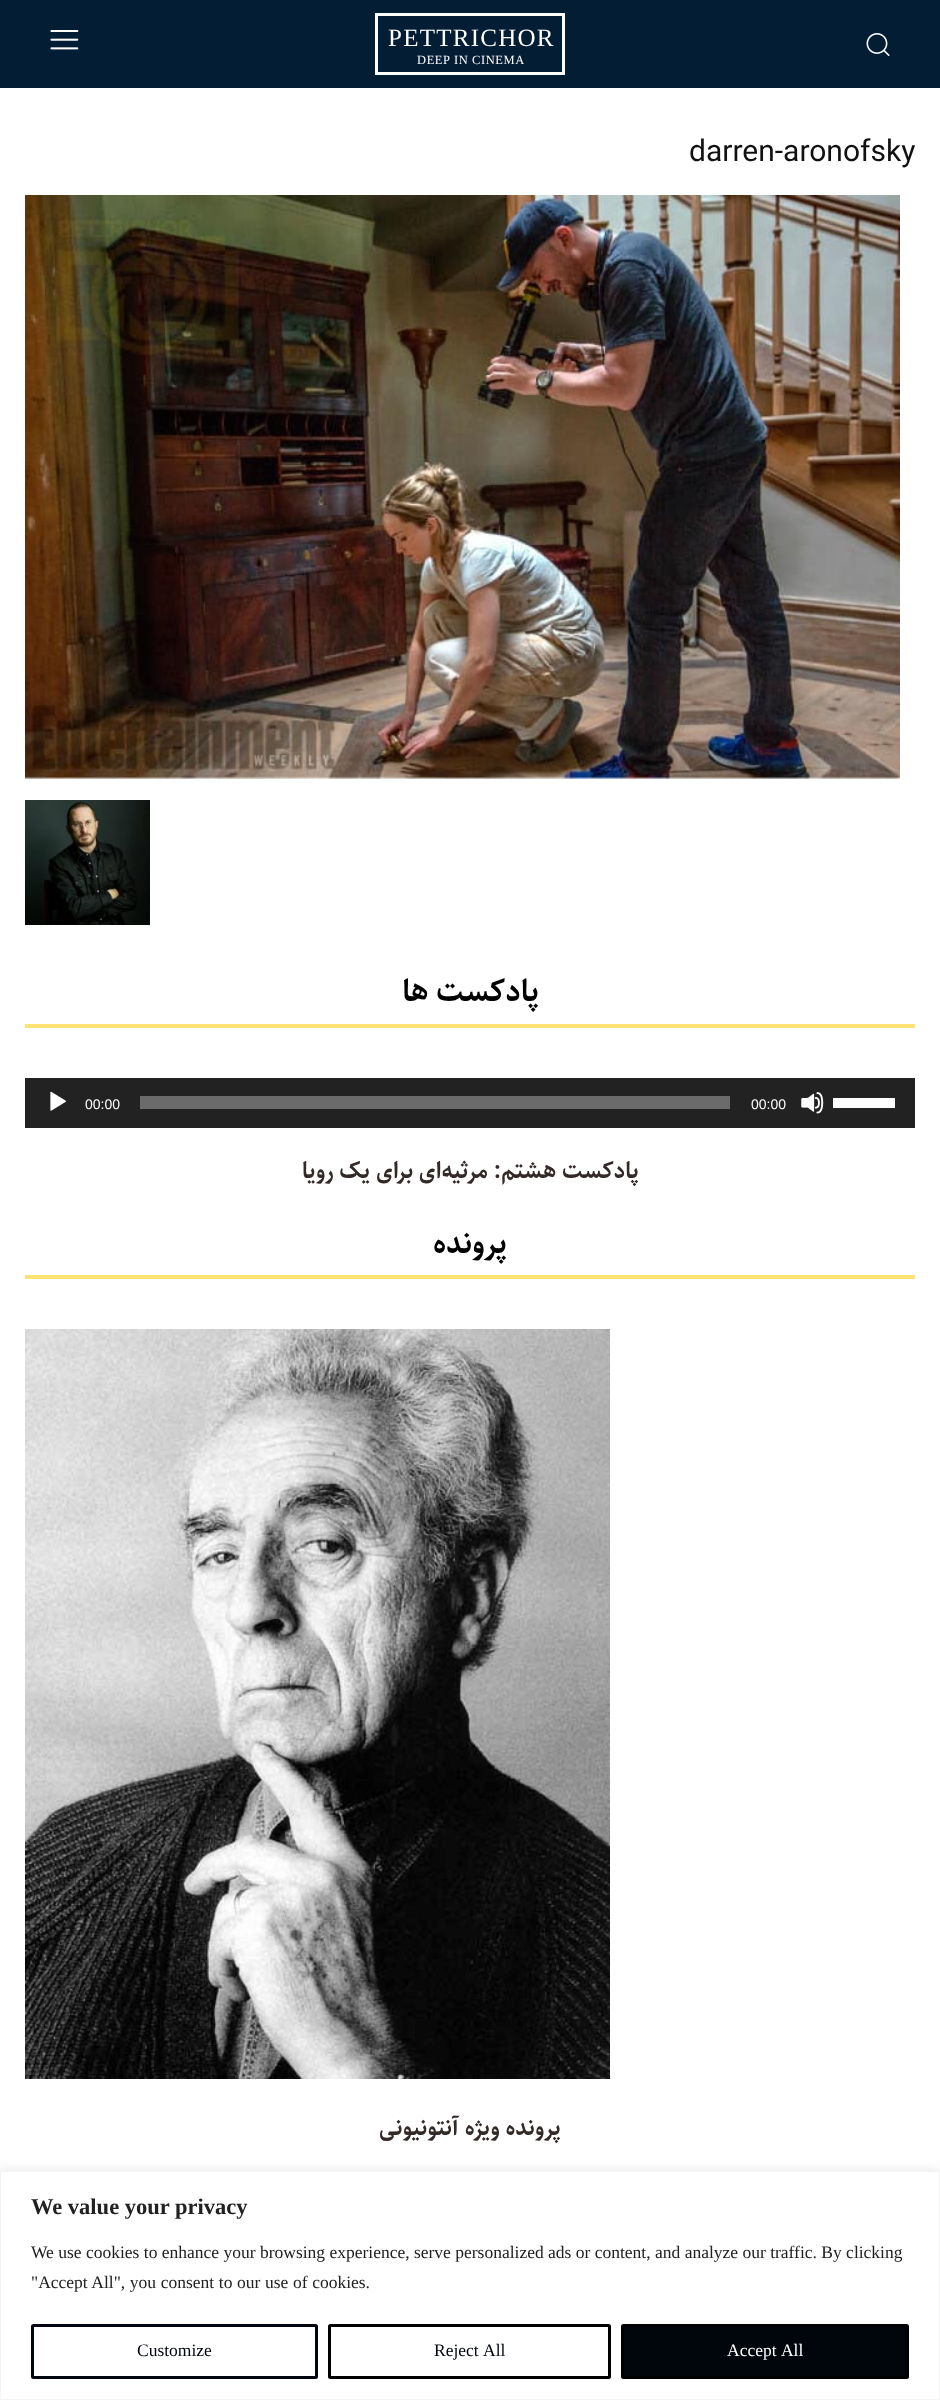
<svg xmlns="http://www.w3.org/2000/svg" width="940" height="2400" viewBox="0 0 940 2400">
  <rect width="100%" height="100%" fill="#fff"/>
  <path d="M0 0h940v88H0z" fill="#031d35"/>
  <image x="50" y="30" width="29" height="20" href="img/1.png"/>
  <path d="M376.5 14.5h187v59H376.5z" fill="none" stroke="#fff" stroke-width="3"/>
  <image x="866" y="33" width="24" height="23" href="img/2.png"/>
  <image x="25" y="195" width="875" height="584" href="img/3.png"/>
  <image x="25" y="800" width="125" height="125" href="img/4.png"/>
  <path d="M25 1024h890v4H25z" fill="#fce373"/>
  <path d="M25 1078h890v50H25z" fill="#222"/>
  <image x="50" y="1091" width="16" height="20" href="img/5.png"/>
  <path d="M140 1096h590v13H140z" fill="#6b6b6b"/>
  <image x="801" y="1092" width="23" height="22" href="img/6.png"/>
  <path d="M833 1098h62v10H833z" fill="#fff"/>
  <path d="M25 1275h890v4H25z" fill="#fce373"/>
  <image x="25" y="1329" width="585" height="750" href="img/7.png"/>
  <path d="M0 2170h940v229H0z" fill="#acabab4d" filter="blur(6px)"/>
  <path d="M0.5 2171.5h939v228H0.5z" fill="#fff" stroke="#f4f4f4"/>
  <rect x="32.5" y="2325.5" width="284" height="52" rx="1" fill="none" stroke="#00060d" stroke-width="3"/>
  <rect x="329.5" y="2325.5" width="280" height="52" rx="1" fill="none" stroke="#000102" stroke-width="3"/>
  <rect x="622.5" y="2325.5" width="285" height="52" rx="1" fill="#00060b" stroke="#000" stroke-width="3"/>
  <text x="388" y="46" font-family="Liberation Serif" font-size="25" letter-spacing="1.25" fill="#fff">PETTRICHOR</text>
  <text x="417" y="64" font-family="Liberation Serif" font-size="12.5" letter-spacing="0.6" fill="#fff">DEEP IN CINEMA</text>
  <text x="689" y="161" font-family="Roboto" font-size="30" fill="#111">darren-aronofsky</text>
  <text x="539" y="1001" font-family="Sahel" font-size="30" font-weight="bold" direction="rtl" fill="#000">پادکست ها</text>
  <g font-family="Liberation Sans" font-size="14" fill="#fff">
    <text x="85" y="1109">00:00</text>
    <text x="751" y="1109">00:00</text>
  </g>
  <text x="639" y="1178" font-family="Sahel" font-size="22.5" font-weight="bold" direction="rtl" fill="#332926">پادکست هشتم: مرثیه‌ای برای یک رویا</text>
  <text x="507" y="1253" font-family="Sahel" font-size="30" font-weight="bold" direction="rtl" fill="#000">پرونده</text>
  <text x="561" y="2135" font-family="Sahel" font-size="22.5" font-weight="bold" direction="rtl" fill="#332926">پرونده ویژه آنتونیونی</text>
  <text x="31" y="2214" font-family="Liberation Serif" font-size="22.5" font-weight="bold" fill="#212121">We value your privacy</text>
  <g font-family="Liberation Serif" font-size="17.5" fill="#212121">
    <text x="31" y="2258">We use cookies to enhance your browsing experience, serve personalized ads or content, and analyze our traffic. By clicking</text>
    <text x="31" y="2288" word-spacing="0.25">"Accept All", you consent to our use of cookies.</text>
  </g>
  <g font-family="Liberation Serif" font-size="17.5" fill="#00050d">
    <text x="137" y="2356">Customize</text>
    <text x="434" y="2356" word-spacing="1">Reject All</text>
  </g>
  <text x="727" y="2356" word-spacing="1" font-family="Liberation Serif" font-size="17.5" fill="#fff">Accept All</text>
</svg>
